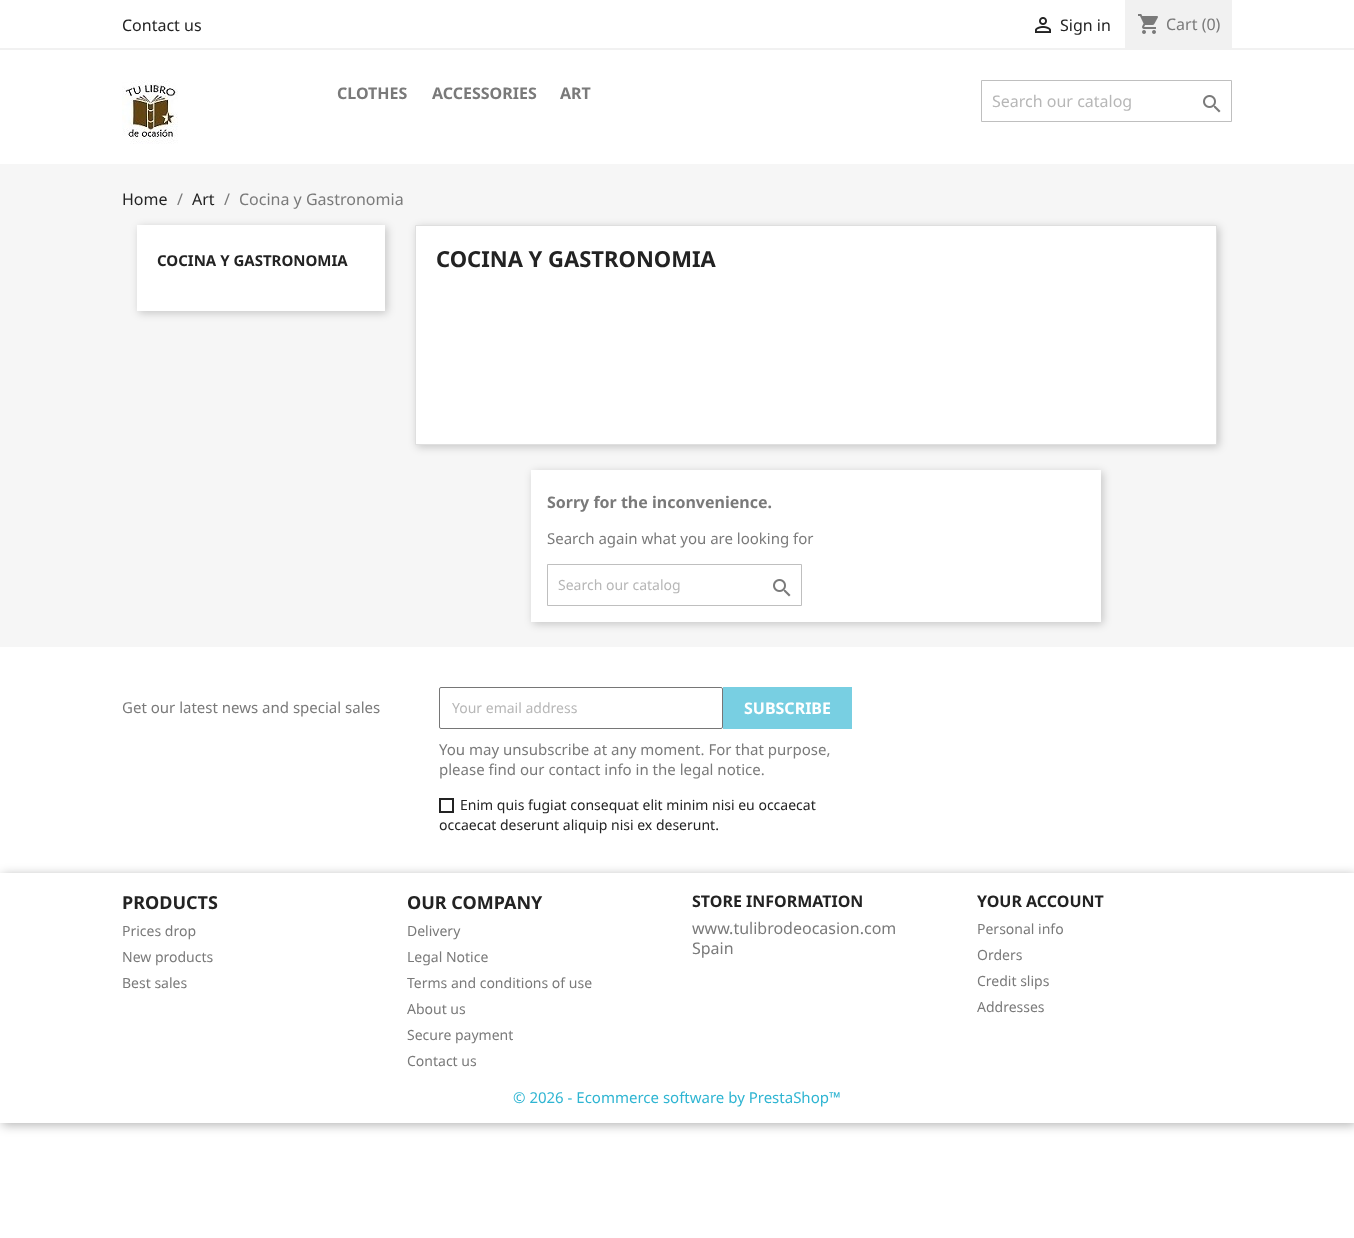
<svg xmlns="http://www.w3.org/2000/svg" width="1354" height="1238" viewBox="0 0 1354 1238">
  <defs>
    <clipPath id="clip1"><path d="M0 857H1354V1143H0ZM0 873H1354V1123H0Z" clip-rule="evenodd"/></clipPath>
  </defs>
  <rect width="100%" height="100%" fill="#fff"/>
  <path d="M0 48h1354v2H0z" fill="#f1f1f1"/>
  <image x="1035" y="17" width="16" height="16" href="img/1.png"/>
  <path d="M1125 0h107v48H1125z" fill="#f1f1f1"/>
  <image x="1138" y="14" width="20" height="20" href="img/2.png"/>
  <image x="122" y="80" width="56" height="64" href="img/3.png"/>
  <path d="M981.5 80.5h250v41H981.5z" fill="none" stroke="#bfbfbf"/>
  <image x="1203" y="95" width="18" height="18" href="img/4.png"/>
  <path d="M0 164h1354v483H0z" fill="#f6f6f6"/>
  <path d="M139 227h248v86H139z" fill="#00000033" filter="blur(4px)"/>
  <path d="M137 225h248v86H137z" fill="#fff"/>
  <path d="M417 227h802v220H417z" fill="#00000033" filter="blur(4px)"/>
  <path d="M415.5 225.5h801v219H415.5z" fill="#fff" stroke="#dfdfdf"/>
  <path d="M533 472h570v152H533z" fill="#00000033" filter="blur(4px)"/>
  <path d="M531 470h570v152H531z" fill="#fff"/>
  <path d="M547.5 564.5h254v41H547.5z" fill="none" stroke="#bfbfbf"/>
  <image x="773" y="579" width="18" height="18" href="img/4.png"/>
  <rect x="439.5" y="687.5" width="283" height="41" rx="1.5" fill="none" stroke="#767676"/>
  <path d="M723 687h129v42H723z" fill="#78cfe2"/>
  <path d="M440 799h13v13H440z" fill="none" stroke="#232323" stroke-width="2"/>
  <g clip-path="url(#clip1)">
    <path d="M2 875h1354v250H2z" fill="#0000004d" filter="blur(5.5px)"/>
  </g>
  <g font-family="Noto Sans" font-size="16" fill="#232323">
    <text x="122" y="31">Contact us</text>
    <text x="1060" y="31">Sign in</text>
  </g>
  <text x="1166" y="30" font-family="Noto Sans" font-size="16" fill="#7a7a7a">Cart (0)</text>
  <g font-family="Noto Sans" font-size="16" font-weight="bold" fill="#7a7a7a">
    <text x="337" y="99">CLOTHES</text>
    <text x="432" y="99">ACCESSORIES</text>
    <text x="560" y="99">ART</text>
  </g>
  <text x="992" y="107" font-family="Noto Sans" font-size="16" fill="#b7b7b7">Search our catalog</text>
  <text x="122" y="205" font-family="Noto Sans" font-size="16" fill="#232323">Home</text>
  <text x="177" y="205" font-family="Noto Sans" font-size="16" fill="#7a7a7a">/</text>
  <text x="192" y="205" font-family="Noto Sans" font-size="16" fill="#232323">Art</text>
  <g font-family="Noto Sans" font-size="16" fill="#7a7a7a">
    <text x="224" y="205">/</text>
    <text x="239" y="205">Cocina y Gastronomia</text>
  </g>
  <text x="157" y="266" font-family="Noto Sans" font-size="15" font-weight="bold" fill="#232323">COCINA Y GASTRONOMIA</text>
  <text x="436" y="267" font-family="Noto Sans" font-size="22" font-weight="bold" fill="#232323">COCINA Y GASTRONOMIA</text>
  <text x="547" y="508" font-family="Noto Sans" font-size="16" font-weight="bold" fill="#7a7a7a">Sorry for the inconvenience.</text>
  <text x="547" y="544" font-family="Noto Sans" font-size="15" fill="#7a7a7a">Search again what you are looking for</text>
  <text x="558" y="590" font-family="Noto Sans" font-size="14" fill="#b7b7b7">Search our catalog</text>
  <text x="122" y="713" font-family="Noto Sans" font-size="15" fill="#7a7a7a">Get our latest news and special sales</text>
  <text x="452" y="713" font-family="Noto Sans" font-size="14" fill="#b7b7b7">Your email address</text>
  <text x="744" y="714" font-family="Noto Sans" font-size="16" font-weight="bold" fill="#fff">SUBSCRIBE</text>
  <g font-family="Noto Sans" font-size="15" fill="#7a7a7a">
    <text x="439" y="755">You may unsubscribe at any moment. For that purpose,</text>
    <text x="439" y="775">please find our contact info in the legal notice.</text>
  </g>
  <g font-family="Noto Sans" font-size="14" fill="#232323">
    <text x="460" y="810">Enim quis fugiat consequat elit minim nisi eu occaecat</text>
    <text x="439" y="830">occaecat deserunt aliquip nisi ex deserunt.</text>
  </g>
  <text x="122" y="909" font-family="Noto Sans" font-size="18" font-weight="bold" fill="#232323">PRODUCTS</text>
  <g font-family="Noto Sans" font-size="14" fill="#7a7a7a">
    <text x="122" y="936">Prices drop</text>
    <text x="122" y="962">New products</text>
    <text x="122" y="988">Best sales</text>
  </g>
  <text x="407" y="909" font-family="Noto Sans" font-size="18" font-weight="bold" fill="#232323">OUR COMPANY</text>
  <g font-family="Noto Sans" font-size="14" fill="#7a7a7a">
    <text x="407" y="936">Delivery</text>
    <text x="407" y="962">Legal Notice</text>
    <text x="407" y="988">Terms and conditions of use</text>
    <text x="407" y="1014">About us</text>
    <text x="407" y="1040">Secure payment</text>
    <text x="407" y="1066">Contact us</text>
  </g>
  <text x="692" y="907" font-family="Noto Sans" font-size="16" font-weight="bold" fill="#232323">STORE INFORMATION</text>
  <g font-family="Noto Sans" font-size="16" fill="#7a7a7a">
    <text x="692" y="934">www.tulibrodeocasion.com</text>
    <text x="692" y="954">Spain</text>
  </g>
  <text x="977" y="907" font-family="Noto Sans" font-size="16" font-weight="bold" fill="#232323">YOUR ACCOUNT</text>
  <g font-family="Noto Sans" font-size="14" fill="#7a7a7a">
    <text x="977" y="934">Personal info</text>
    <text x="977" y="960">Orders</text>
    <text x="977" y="986">Credit slips</text>
    <text x="977" y="1012">Addresses</text>
  </g>
  <text x="513" y="1103" font-family="Noto Sans" font-size="15" fill="#2fb5d2">© 2026 - Ecommerce software by PrestaShop™</text>
</svg>
